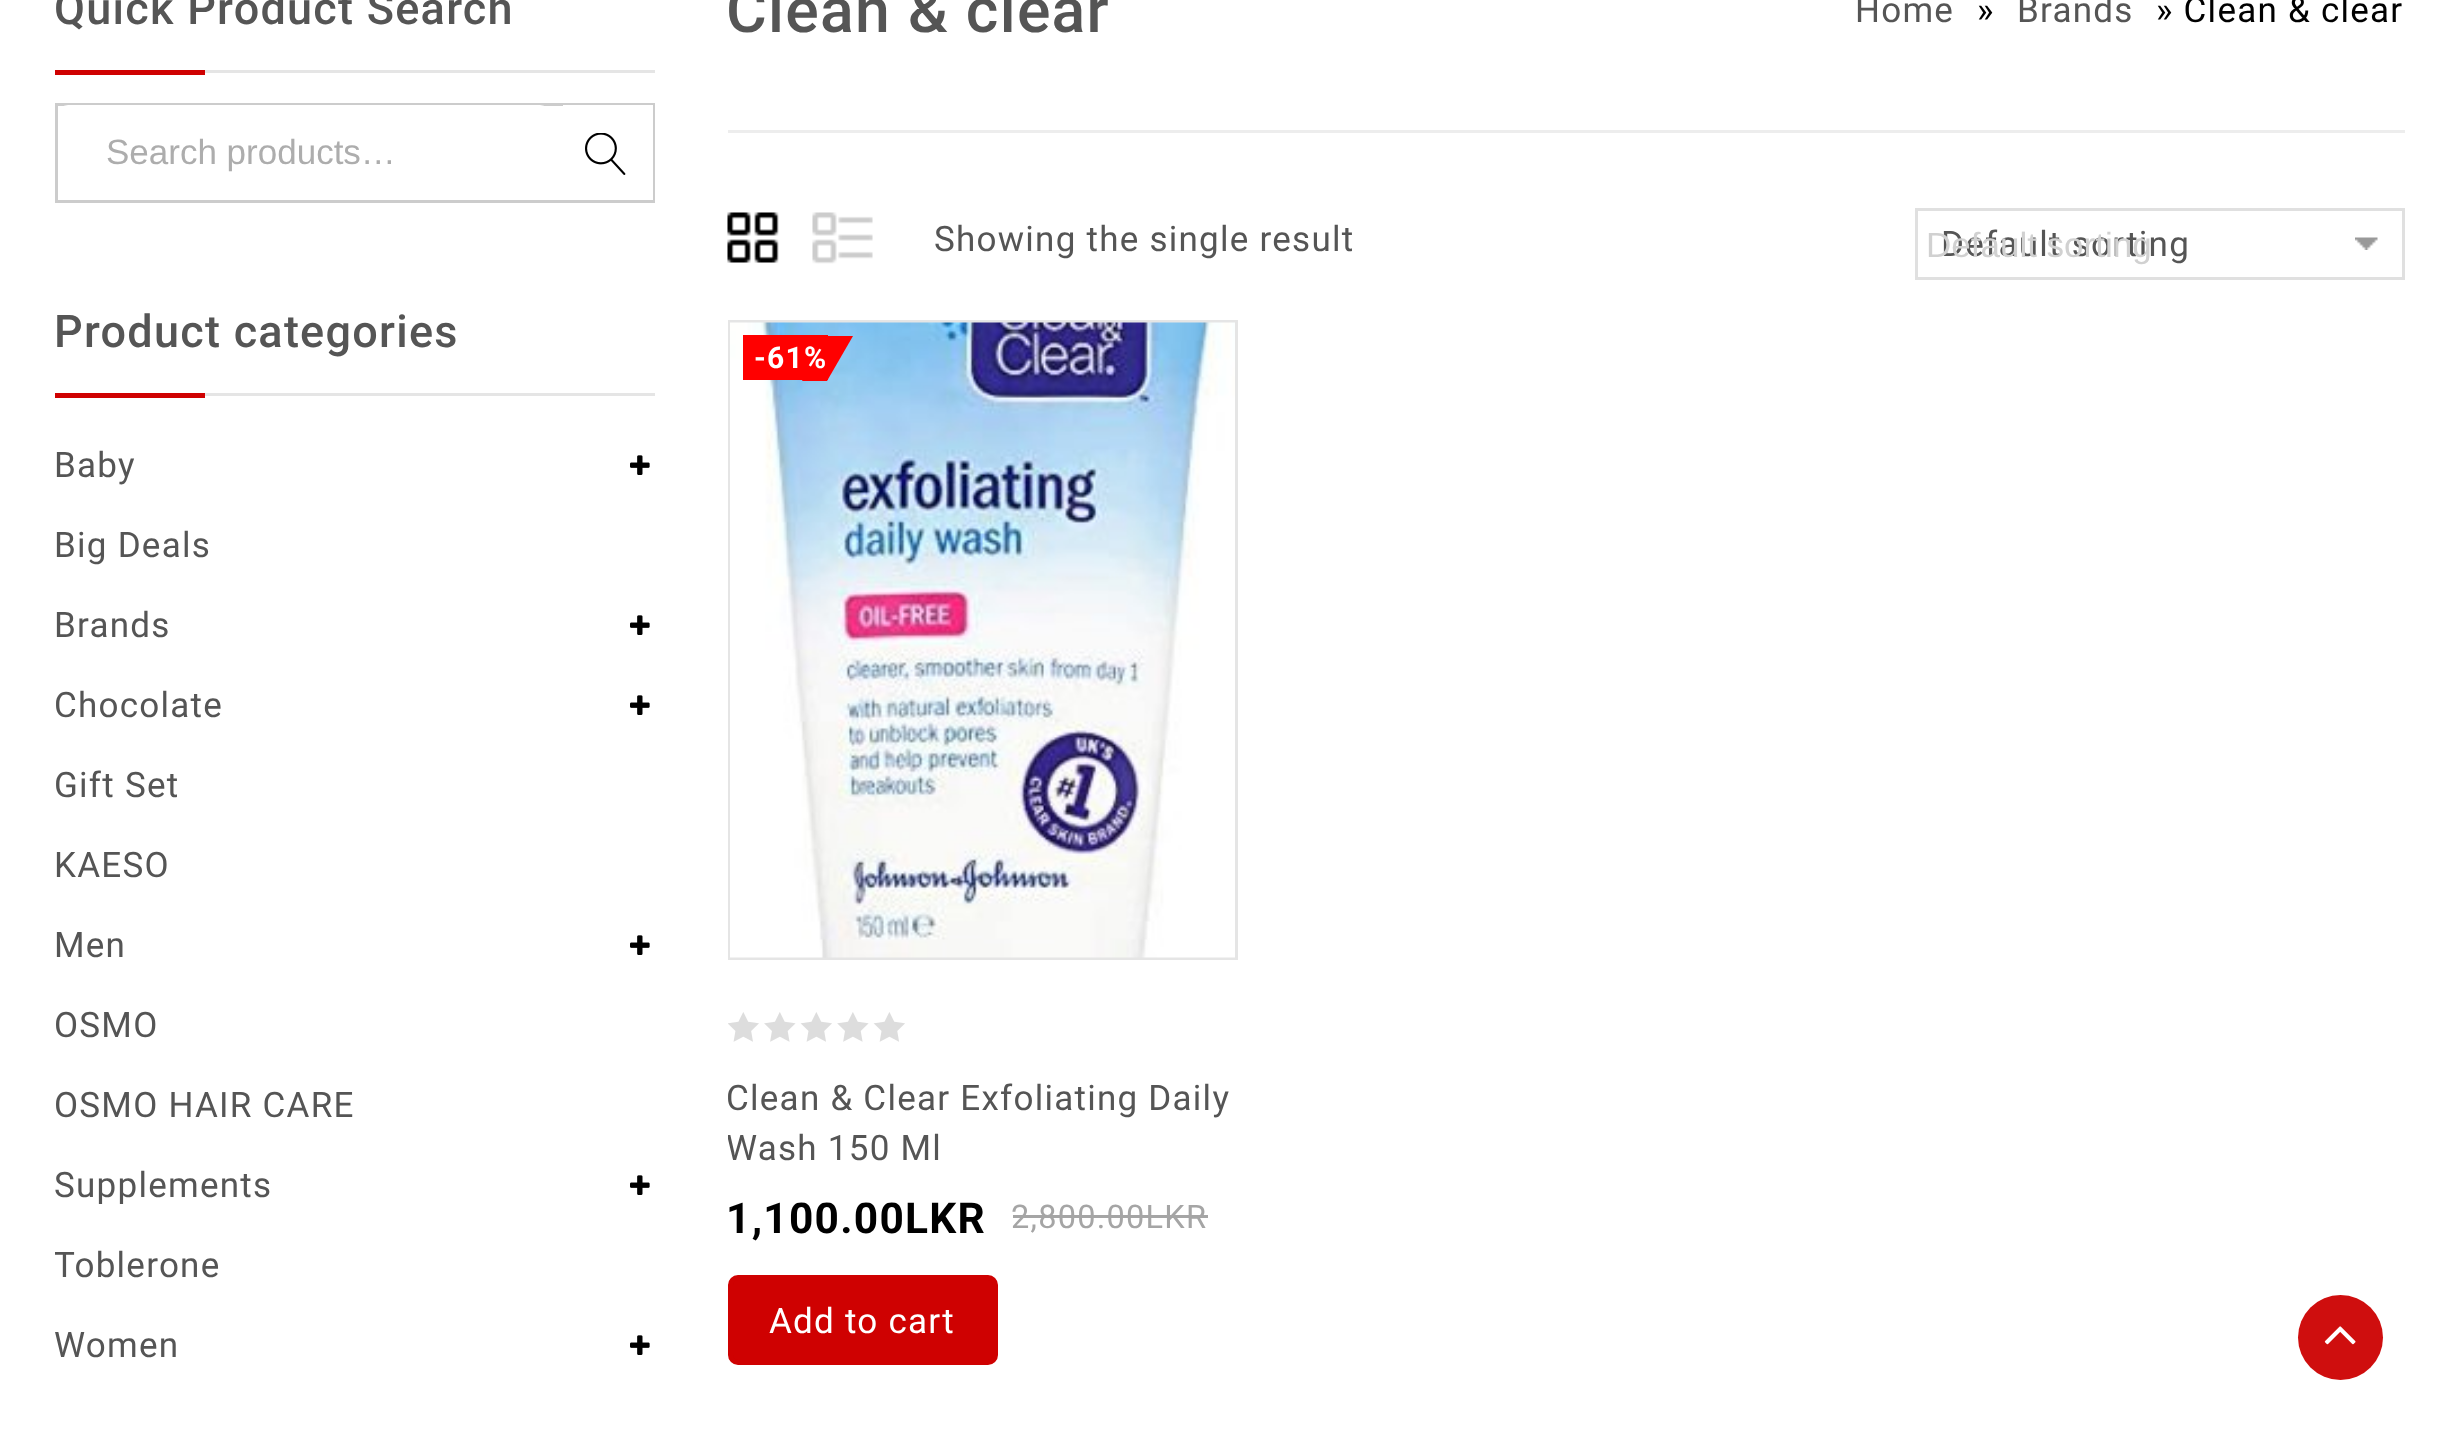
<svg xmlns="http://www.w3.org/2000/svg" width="2456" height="1453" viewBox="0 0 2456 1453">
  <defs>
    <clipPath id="clip1"><path d="M55 303h600v1082H55z"/></clipPath>
    <clipPath id="clip2"><path d="M728 320h510v1045H728z"/></clipPath>
  </defs>
  <rect width="100%" height="100%" fill="#fff"/>
  <path d="M205 70h450v3H205z" fill="#e5e5e5"/>
  <path d="M55 70h150v5H55z" fill="#cf0101"/>
  <path d="M56.5 104.5h597v97H56.5z" fill="none" stroke="#ccc" stroke-width="3"/>
  <rect x="58" y="105" width="492" height="95" rx="10" fill="#fff"/>
  <path d="M563 105h90v95H563z" fill="#fff"/>
  <image x="585" y="133" width="41" height="42" href="img/1.png"/>
  <path d="M205 393h450v3H205z" fill="#e5e5e5"/>
  <path d="M55 393h150v5H55z" fill="#cf0101"/>
  <image x="630" y="455" width="20" height="20" href="img/2.png"/>
  <image x="630" y="615" width="20" height="20" href="img/2.png"/>
  <image x="630" y="695" width="20" height="20" href="img/2.png"/>
  <image x="630" y="935" width="20" height="20" href="img/2.png"/>
  <image x="630" y="1175" width="20" height="20" href="img/2.png"/>
  <image x="630" y="1335" width="20" height="20" href="img/2.png"/>
  <path d="M728 130h1677v3H728z" fill="#ededed"/>
  <image x="727" y="212" width="52" height="51" href="img/3.png"/>
  <image x="812" y="212" width="61" height="52" href="img/4.png"/>
  <path d="M1916.5 209.5h487v69H1916.5z" fill="none" stroke="#e0e0e0" stroke-width="3"/>
  <image x="2355" y="237" width="23" height="13" href="img/5.png"/>
  <path d="M729.5 321.5h507v637H729.5z" fill="none" stroke="#e5e5e5" stroke-width="3"/>
  <image x="730" y="322" width="505" height="636" href="img/6.png"/>
  <path d="M743 335h85v45H743z" fill="#f00"/>
  <path d="M828 336H853L827 381H802Z" fill="#f00"/>
  <image x="728" y="1012" width="177" height="30" href="img/7.png"/>
  <path d="M1013 1215h195v3H1013z" fill="#a5a5a5"/>
  <rect x="730.5" y="1277.5" width="265" height="85" rx="7.5" fill="#cf0101" stroke="#cf0101" stroke-width="5"/>
  <circle cx="2340.5" cy="1337.5" r="42.5" fill="#cf0e0e"/>
  <image x="2324" y="1326" width="32" height="19" href="img/8.png"/>
  <text x="54" y="24" font-family="Roboto" font-size="45" font-weight="500" letter-spacing="1.25" fill="#555">Quick Product Search</text>
  <text x="106" y="164" font-family="Liberation Sans" font-size="35" fill="#adadad">Search products…</text>
  <text x="54" y="347" font-family="Roboto" font-size="45" font-weight="500" letter-spacing="1.25" fill="#555">Product categories</text>
  <g font-family="Roboto" font-size="35" letter-spacing="1.25" fill="#555">
    <text x="54" y="477">Baby</text>
    <text x="54" y="557">Big Deals</text>
    <text x="54" y="637">Brands</text>
    <text x="54" y="717">Chocolate</text>
    <text x="54" y="797">Gift Set</text>
    <text x="54" y="877">KAESO</text>
    <text x="54" y="957">Men</text>
    <text x="54" y="1037">OSMO</text>
    <text x="54" y="1117">OSMO HAIR CARE</text>
    <text x="54" y="1197">Supplements</text>
  </g>
  <g clip-path="url(#clip1)">
    <text x="54" y="1277" font-family="Roboto" font-size="35" letter-spacing="1.25" fill="#555">Toblerone</text>
  </g>
  <text x="54" y="1357" font-family="Roboto" font-size="35" letter-spacing="1.25" fill="#555">Women</text>
  <text x="726" y="32" font-family="Roboto" font-size="62.5" font-weight="500" letter-spacing="1.25" fill="#555">Clean &amp; clear</text>
  <text x="1855" y="22" font-family="Roboto" font-size="35" letter-spacing="1.25" fill="#555">Home</text>
  <text x="1977" y="22" font-family="Roboto" font-size="35" letter-spacing="1.25" fill="#000">»</text>
  <text x="2017" y="22" font-family="Roboto" font-size="35" letter-spacing="1.25" fill="#555">Brands</text>
  <text x="2156" y="22" font-family="Roboto" font-size="35" letter-spacing="1.25" fill="#000">» Clean &amp; clear</text>
  <g font-family="Roboto" font-size="35" letter-spacing="1.25" fill="#555">
    <text x="934" y="251">Showing the single result</text>
    <text x="1941" y="256">Default sorting</text>
  </g>
  <text x="1926" y="257" font-family="Liberation Sans" font-size="35" fill="#d1d1d1">Default sorting</text>
  <text x="754" y="368" font-family="Roboto" font-size="30" font-weight="bold" letter-spacing="1.25" fill="#fff">-61%</text>
  <text x="726" y="1110" font-family="Roboto" font-size="35" letter-spacing="1.25" fill="#555">Clean &amp; Clear Exfoliating Daily</text>
  <g clip-path="url(#clip2)">
    <text x="726" y="1160" font-family="Roboto" font-size="35" letter-spacing="1.25" fill="#555">Wash 150 Ml</text>
  </g>
  <text x="726" y="1233" font-family="Roboto" font-size="42.5" font-weight="bold" letter-spacing="1.25" fill="#000">1,100.00LKR</text>
  <text x="1011" y="1228" font-family="Roboto" font-size="32.5" letter-spacing="1.25" fill="#a5a5a5">2,800.00LKR</text>
  <text x="769" y="1333" font-family="Roboto" font-size="35" letter-spacing="1.25" fill="#fff">Add to cart</text>
</svg>
